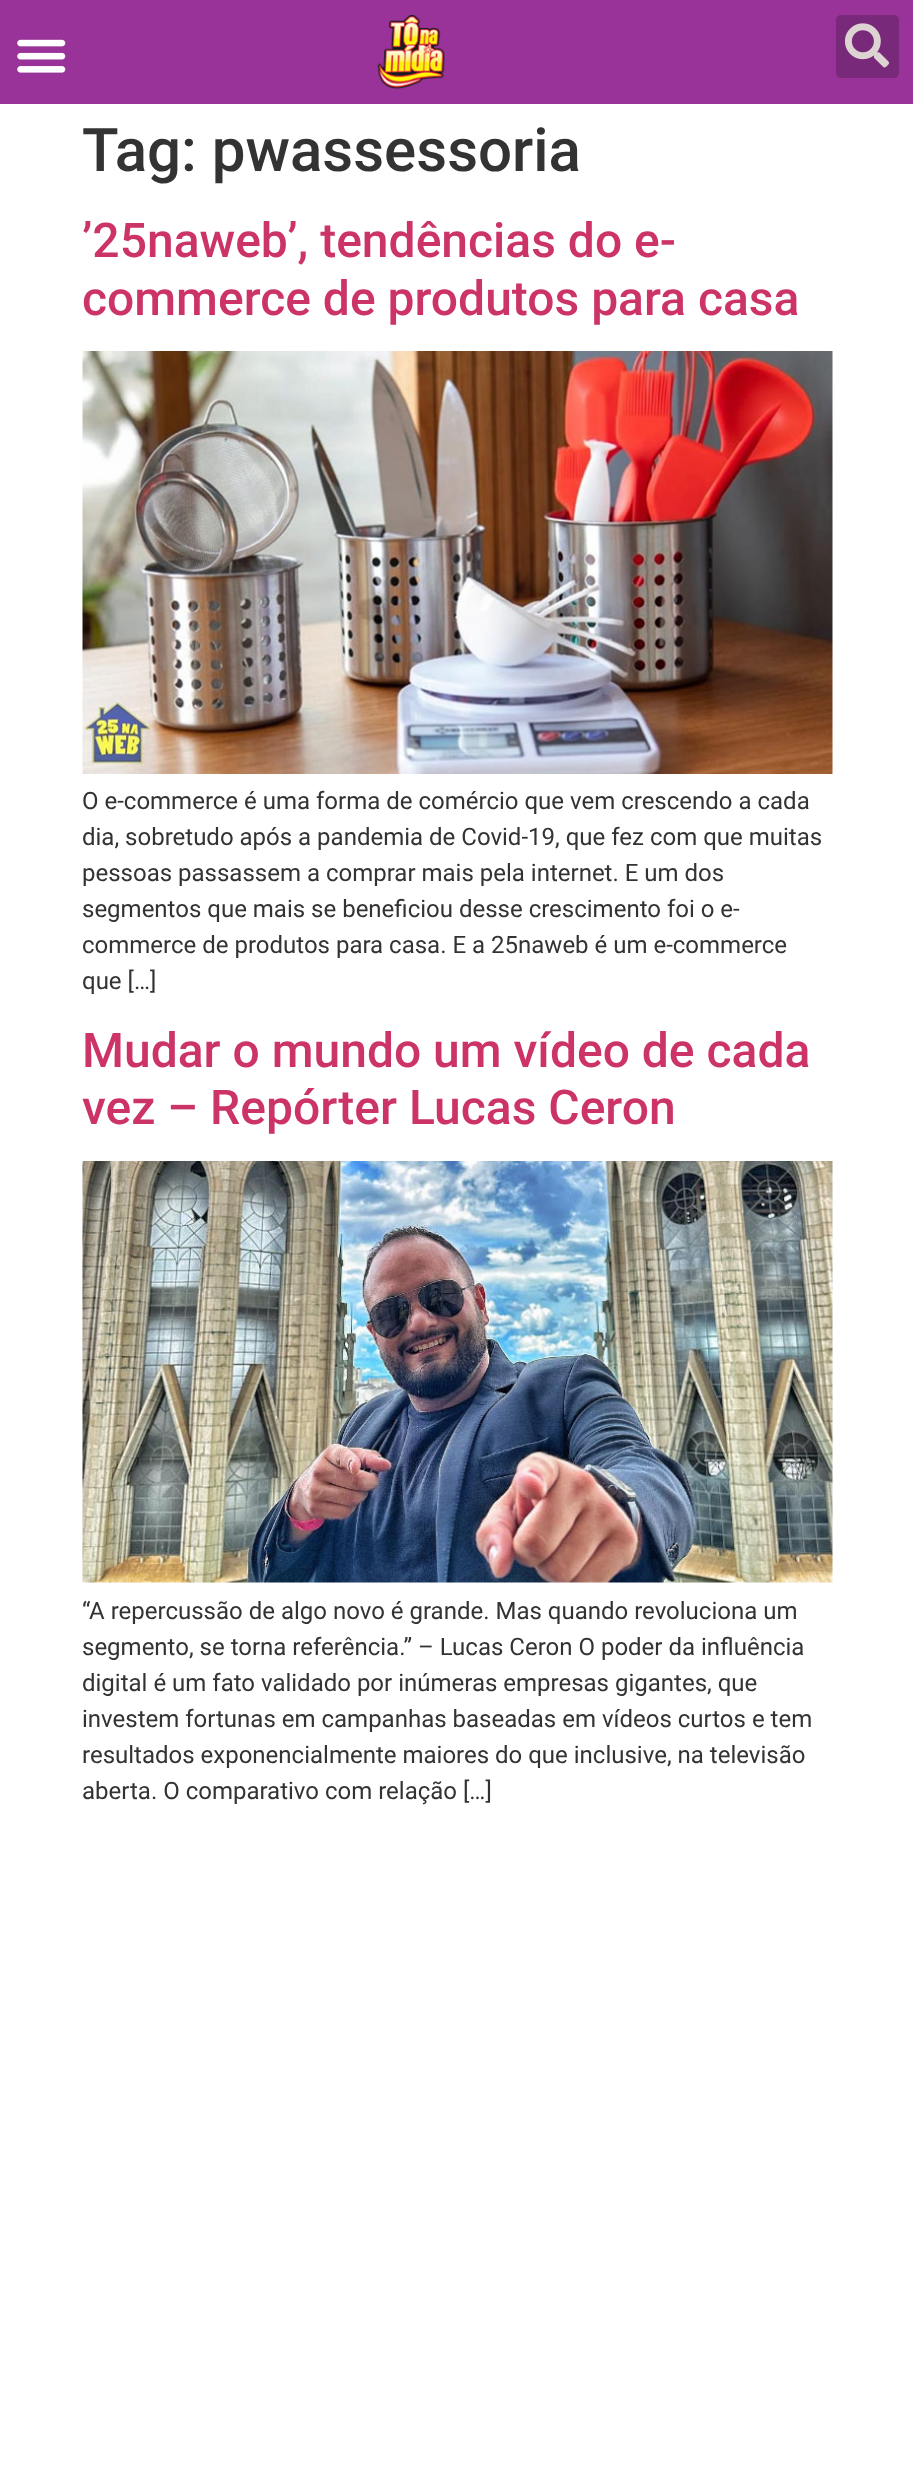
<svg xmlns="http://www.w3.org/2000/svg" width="913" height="2488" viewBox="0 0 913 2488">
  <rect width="100%" height="100%" fill="#fff"/>
  <path d="M0 0h913v104H0z" fill="#939"/>
  <image x="17" y="39" width="49" height="34" href="img/1.png"/>
  <image x="377" y="15" width="68" height="74" href="img/2.png"/>
  <rect x="836" y="15" width="63" height="63" rx="5" fill="#792979"/>
  <image x="844" y="23" width="45" height="45" href="img/3.png"/>
  <image x="82" y="351" width="751" height="423" href="img/4.png"/>
  <image x="82" y="1161" width="751" height="422" href="img/5.png"/>
  <text x="82" y="171" font-family="Roboto" font-size="60" font-weight="500" fill="#333">Tag: pwassessoria</text>
  <g font-family="Roboto" font-size="48" font-weight="500" fill="#c36">
    <text x="82" y="257">’25naweb’, tendências do e-</text>
    <text x="82" y="315">commerce de produtos para casa</text>
  </g>
  <g font-family="Roboto" font-size="24" fill="#333">
    <text x="82" y="809">O e-commerce é uma forma de comércio que vem crescendo a cada</text>
    <text x="82" y="845">dia, sobretudo após a pandemia de Covid-19, que fez com que muitas</text>
    <text x="82" y="881">pessoas passassem a comprar mais pela internet. E um dos</text>
    <text x="82" y="917">segmentos que mais se beneficiou desse crescimento foi o e-</text>
    <text x="82" y="953">commerce de produtos para casa. E a 25naweb é um e-commerce</text>
    <text x="82" y="989">que […]</text>
  </g>
  <g font-family="Roboto" font-size="48" font-weight="500" fill="#c36">
    <text x="82" y="1067">Mudar o mundo um vídeo de cada</text>
    <text x="82" y="1124">vez – Repórter Lucas Ceron</text>
  </g>
  <g font-family="Roboto" font-size="24" fill="#333">
    <text x="82" y="1619">“A repercussão de algo novo é grande. Mas quando revoluciona um</text>
    <text x="82" y="1655">segmento, se torna referência.” – Lucas Ceron O poder da influência</text>
    <text x="82" y="1691">digital é um fato validado por inúmeras empresas gigantes, que</text>
    <text x="82" y="1727">investem fortunas em campanhas baseadas em vídeos curtos e tem</text>
    <text x="82" y="1763">resultados exponencialmente maiores do que inclusive, na televisão</text>
    <text x="82" y="1799">aberta. O comparativo com relação […]</text>
  </g>
</svg>
